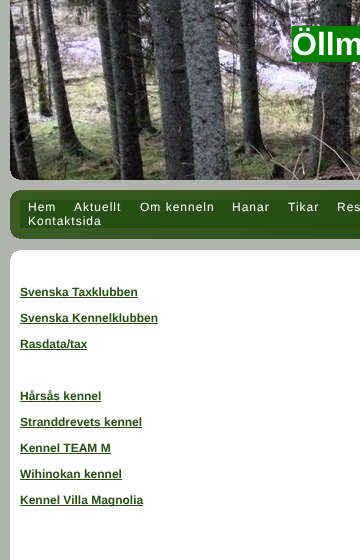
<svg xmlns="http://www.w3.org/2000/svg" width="360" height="560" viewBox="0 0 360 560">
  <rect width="100%" height="100%" fill="#b1b3af"/>
  <image x="10" y="0" width="350" height="180" href="img/1.png"/>
  <path d="M292 26h68v36H292z" fill="#008000"/>
  <image x="10" y="171" width="350" height="29" href="img/2.png"/>
  <image x="10" y="200" width="350" height="29" href="img/3.png"/>
  <path d="M20 200h340v28H20z" fill="#274e15"/>
  <image x="10" y="229" width="350" height="10" href="img/4.png"/>
  <path d="M10 259h350v301H10z" fill="#fff"/>
  <image x="10" y="249" width="350" height="10" href="img/5.png"/>
  <path d="M20 297h118v1H20z" fill="#274e15"/>
  <path d="M20 323h138v1H20z" fill="#274e15"/>
  <path d="M20 349h67v1H20z" fill="#274e15"/>
  <path d="M20 401h81v1H20z" fill="#274e15"/>
  <path d="M20 427h122v1H20z" fill="#274e15"/>
  <path d="M20 453h91v1H20z" fill="#274e15"/>
  <path d="M20 479h102v1H20z" fill="#274e15"/>
  <path d="M20 505h123v1H20z" fill="#274e15"/>
  <text x="292" y="55" font-family="Liberation Sans" font-size="32" font-weight="bold" fill="#fff">Öllm</text>
  <g font-family="Liberation Sans" font-size="12" letter-spacing="1" fill="#fff">
    <text x="28" y="211">Hem</text>
    <text x="74" y="211">Aktuellt</text>
    <text x="140" y="211">Om kenneln</text>
    <text x="232" y="211">Hanar</text>
    <text x="288" y="211">Tikar</text>
    <text x="337" y="211">Res</text>
    <text x="28" y="225">Kontaktsida</text>
  </g>
  <g font-family="Liberation Sans" font-size="12" font-weight="bold" fill="#274e15">
    <text x="20" y="296">Svenska Taxklubben</text>
    <text x="20" y="322">Svenska Kennelklubben</text>
    <text x="20" y="348">Rasdata/tax</text>
    <text x="20" y="400">Hårsås kennel</text>
    <text x="20" y="426">Stranddrevets kennel</text>
    <text x="20" y="452">Kennel TEAM M</text>
    <text x="20" y="478">Wihinokan kennel</text>
    <text x="20" y="504">Kennel Villa Magnolia</text>
  </g>
</svg>
